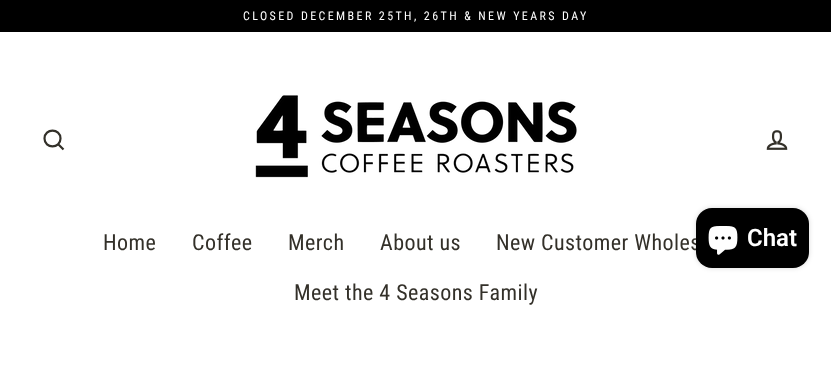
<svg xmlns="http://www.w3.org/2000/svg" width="831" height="373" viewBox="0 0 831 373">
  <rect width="100%" height="100%" fill="#fff"/>
  <path d="M0 0h831v32H0z" fill="#000"/>
  <path d="M60.5 138.5C60.5 149 44.5 149 44.5 138.5C44.5 128 60.5 128 60.5 138.5ZM63.5 149.5L58.5 144.5" fill="none" stroke="#333029" stroke-width="2.2"/>
  <image x="255" y="95" width="322" height="83" href="img/1.png"/>
  <image x="766" y="130" width="22" height="20" href="img/2.png"/>
  <rect x="696" y="208" width="113" height="60" rx="16" fill="#00000026" filter="blur(2.5px)"/>
  <text x="243" y="20" font-family="Roboto Condensed" font-size="12" letter-spacing="2.4" fill="#fff">CLOSED DECEMBER 25TH, 26TH &amp; NEW YEARS DAY</text>
  <g font-family="Roboto Condensed" font-size="22" letter-spacing="0.45" fill="#333029">
    <text x="103" y="250">Home</text>
    <text x="192" y="250">Coffee</text>
    <text x="288" y="250">Merch</text>
    <text x="380" y="250">About us</text>
    <text x="496" y="250">New Customer Wholes</text>
    <text x="294" y="300">Meet the 4 Seasons Family</text>
  </g>
  <rect x="696" y="208" width="113" height="60" rx="16" fill="#000"/>
  <image x="708" y="226" width="30" height="29" href="img/3.png"/>
  <text x="747" y="246" font-family="Roboto" font-size="24" font-weight="600" fill="#fff">Chat</text>
</svg>
